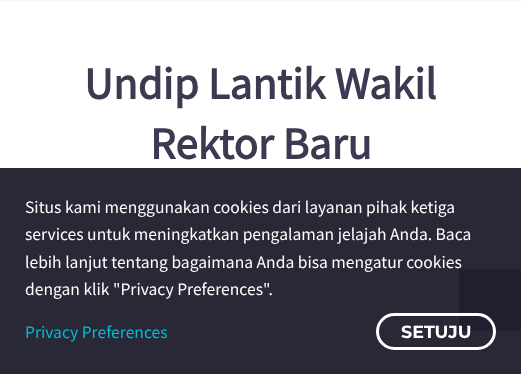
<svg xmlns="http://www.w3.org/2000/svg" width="521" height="374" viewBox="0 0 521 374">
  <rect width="100%" height="100%" fill="#282837"/>
  <path d="M0 0h521v168H0z" fill="#fff"/>
  <path d="M0 -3h521v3H0z" fill="#38455433" filter="blur(1px)"/>
  <path d="M459 269h62v62H459z" fill="#1f1f2f"/>
  <image x="477" y="287" width="26" height="26" href="img/1.png"/>
  <rect x="377.5" y="314.5" width="117" height="34" rx="17" fill="none" stroke="#fff" stroke-width="3"/>
  <g font-family="Source Sans Pro" font-size="45" font-weight="bold" fill="#3c3950">
    <text x="84" y="99">Undip Lantik Wakil</text>
    <text x="150" y="159">Rektor Baru</text>
  </g>
  <g font-family="Source Sans Pro" font-size="17.5" fill="#fff">
    <text x="25" y="213">Situs kami menggunakan cookies dari layanan pihak ketiga</text>
    <text x="25" y="240">services untuk meningkatkan pengalaman jelajah Anda. Baca</text>
    <text x="25" y="268">lebih lanjut tentang bagaimana Anda bisa mengatur cookies</text>
    <text x="25" y="295">dengan klik "Privacy Preferences".</text>
  </g>
  <text x="25" y="338" font-family="Source Sans Pro" font-size="17.5" fill="#00bcd4">Privacy Preferences</text>
  <text x="401" y="338" font-family="Montserrat" font-size="17.5" font-weight="bold" fill="#fff">SETUJU</text>
</svg>
